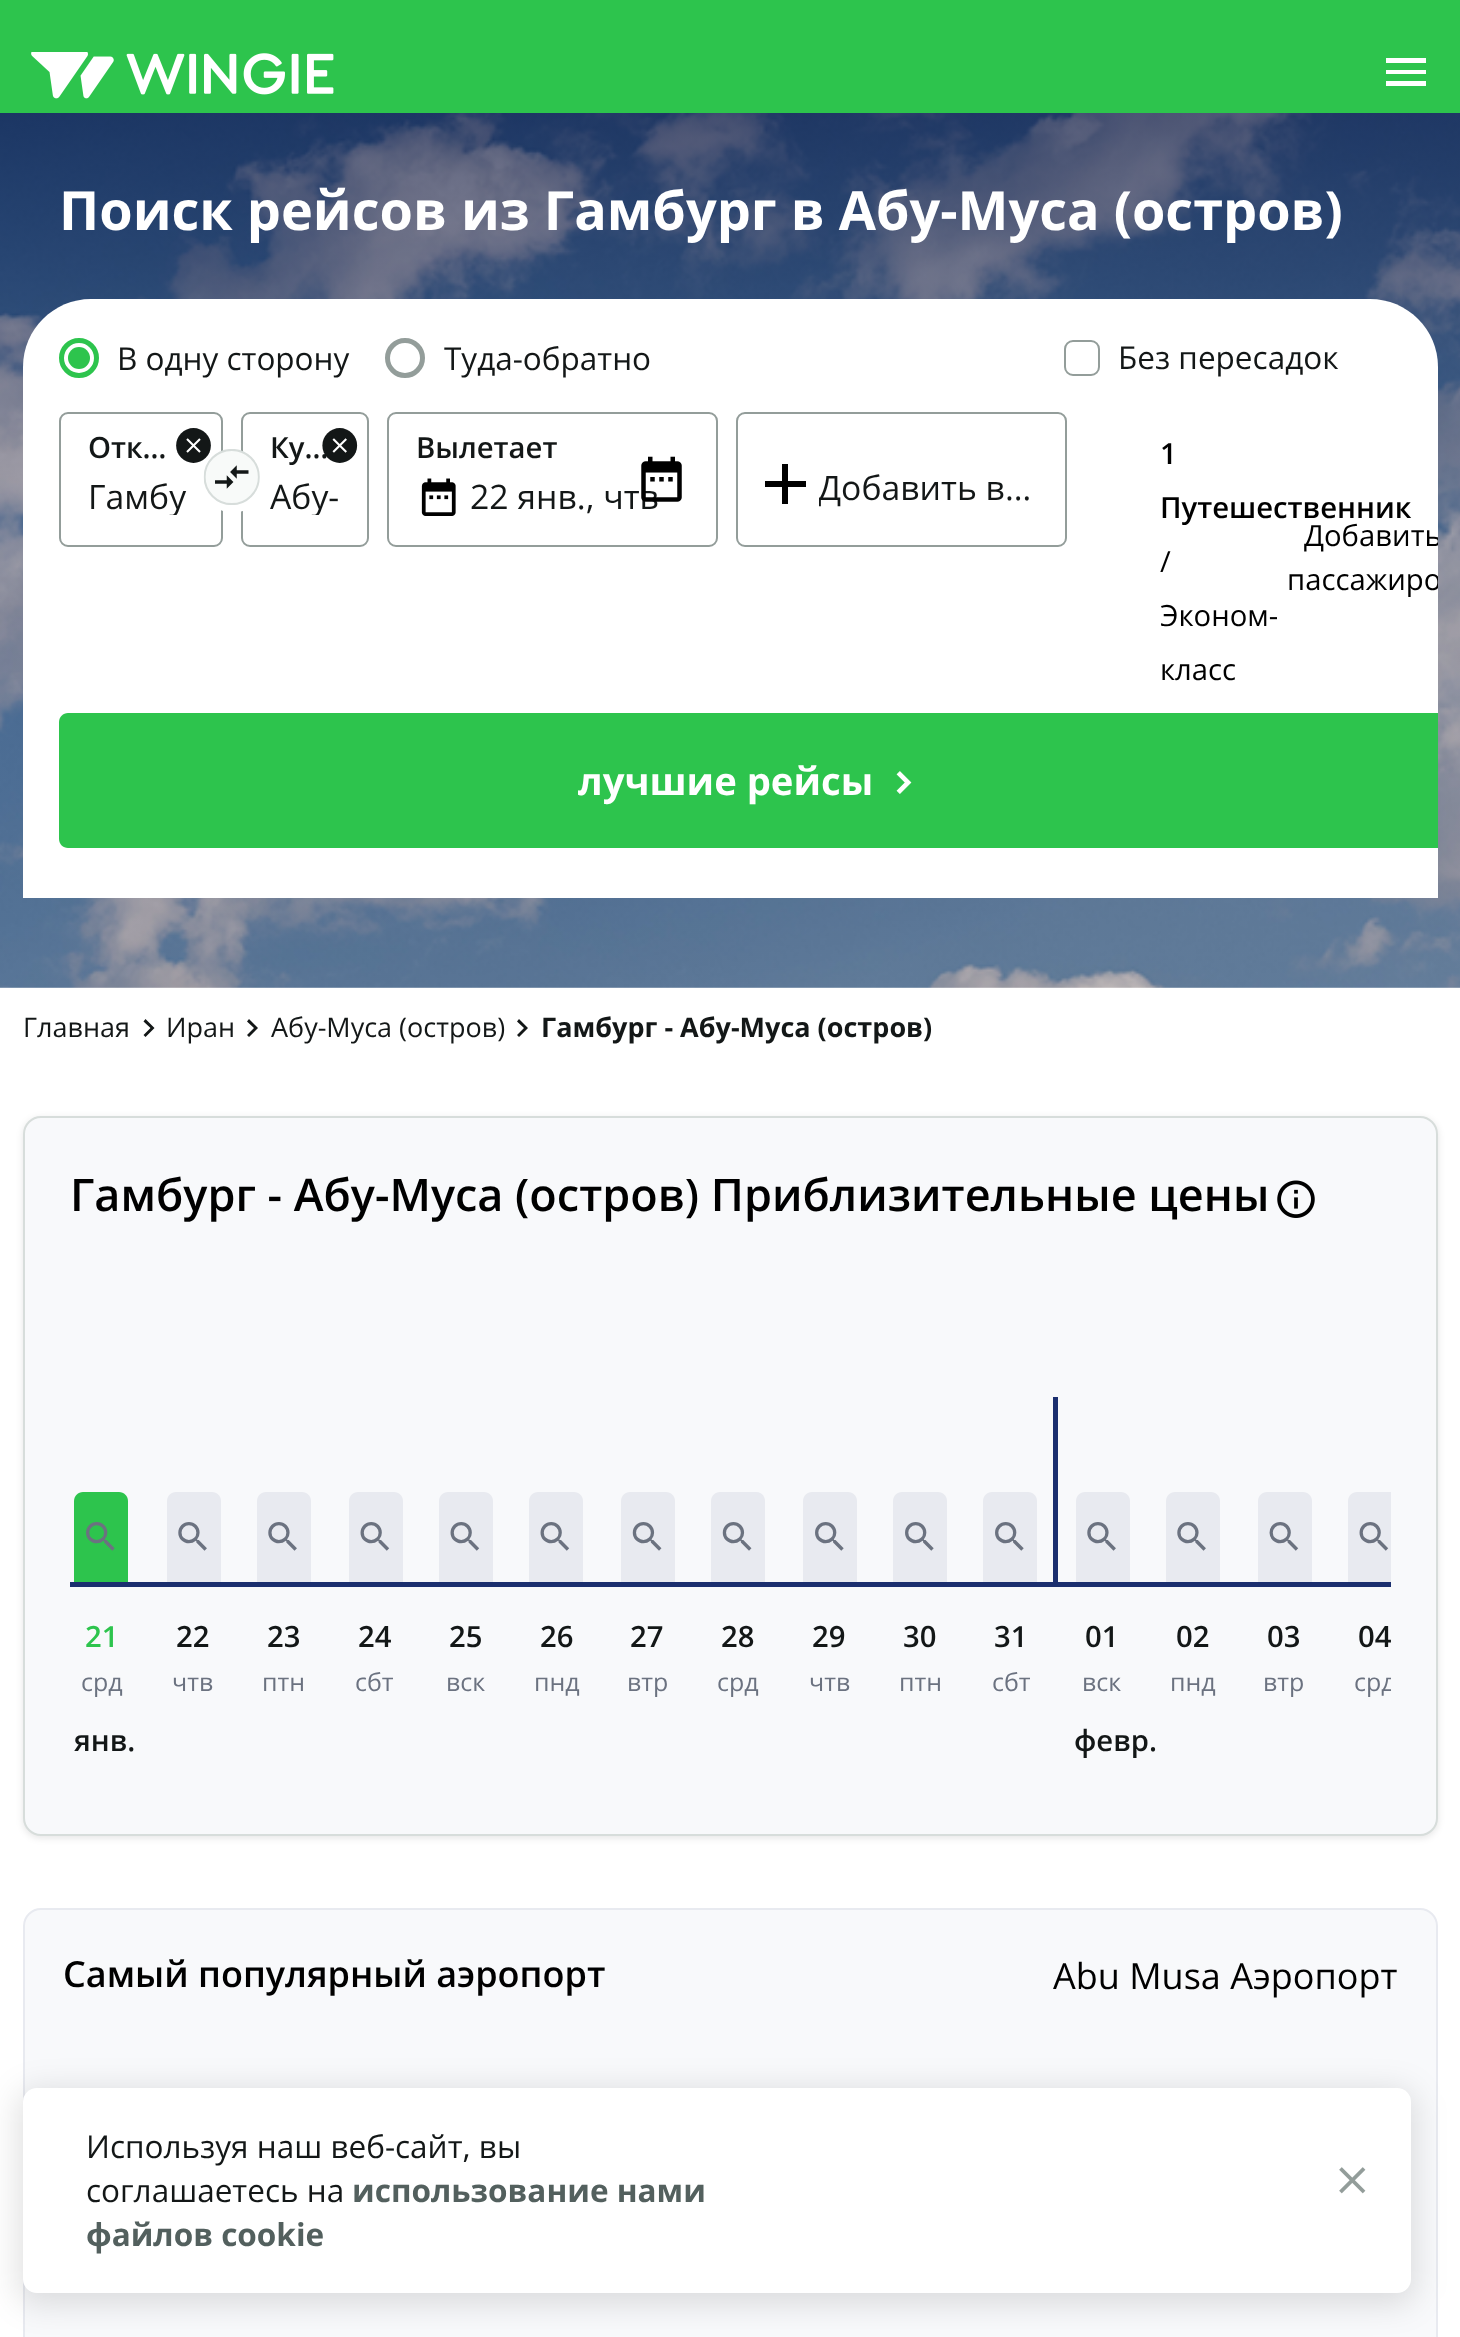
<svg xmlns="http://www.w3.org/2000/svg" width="1460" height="2337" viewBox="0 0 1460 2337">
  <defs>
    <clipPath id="clip1"><path d="M88 475h106v40H88z"/></clipPath>
    <clipPath id="clip2"><path d="M270 475h70v40H270z"/></clipPath>
    <clipPath id="clip3"><rect x="819" y="455" width="227" height="63" rx="9"/></clipPath>
    <clipPath id="clip4"><path d="M23 110h1415v788H23z"/></clipPath>
    <clipPath id="clip5"><path d="M70 1262h1321v527H70z"/></clipPath>
  </defs>
  <rect width="100%" height="100%" fill="#fff"/>
  <path d="M0 0h1460v113H0z" fill="#2dc44d"/>
  <image x="31" y="52" width="303" height="47" href="img/1.png"/>
  <path d="M1386 86H1426V81H1386ZM1386 74H1426V70H1386ZM1386 58V63H1426V58Z" fill="#fff"/>
  <image x="0" y="113" width="1460" height="875" href="img/2.png"/>
  <path d="M91 299H1370C1407.5 299 1438 329.5 1438 367V898H23V367C23 329.5 53.5 299 91 299Z" fill="#fff"/>
  <circle cx="79" cy="358" r="17.5" fill="none" stroke="#2dc44d" stroke-width="5"/>
  <circle cx="79" cy="358" r="11" fill="#2dc44d"/>
  <circle cx="405" cy="358" r="17.5" fill="none" stroke="#939d9a" stroke-width="5"/>
  <rect x="1065" y="341" width="34" height="34" rx="8" fill="none" stroke="#939d9a" stroke-width="2"/>
  <rect x="60" y="413" width="162" height="133" rx="8" fill="none" stroke="#939d9a" stroke-width="2"/>
  <image x="176" y="428" width="35" height="35" href="img/3.png"/>
  <rect x="242" y="413" width="126" height="133" rx="8" fill="none" stroke="#939d9a" stroke-width="2"/>
  <circle cx="233" cy="485" r="28" fill="#fff"/>
  <image x="203" y="449" width="57" height="56" href="img/4.png"/>
  <rect x="388" y="413" width="329" height="133" rx="8" fill="none" stroke="#939d9a" stroke-width="2"/>
  <image x="421" y="478" width="35" height="38" href="img/7.png"/>
  <rect x="737" y="413" width="329" height="133" rx="8" fill="none" stroke="#939d9a" stroke-width="2"/>
  <path d="M806 487H788V504H782V487H765V481H782V464H788V481H806Z" fill="#000"/>
  <path d="M68 713H1438V848H68C63 848 59 844 59 839V722C59 717 63 713 68 713Z" fill="#2dc44d"/>
  <image x="896" y="771" width="16" height="23" href="img/8.png"/>
  <path d="M145.5 1019L143.5 1021.5L150.5 1028L143.5 1035L145.5 1037L154.5 1028Z" fill="#131717"/>
  <path d="M249 1019L247 1021.5L254 1028L247 1035L249 1037L258 1028Z" fill="#131717"/>
  <path d="M519 1019L517 1021.5L524 1028L517 1035L519 1037L528 1028Z" fill="#131717"/>
  <rect x="23" y="1118" width="1415" height="720" rx="18" fill="#0000001a" filter="blur(3.5px)"/>
  <rect x="24" y="1117" width="1413" height="718" rx="17" fill="#f8f9fb" stroke="#d7dddb" stroke-width="2"/>
  <image x="1277" y="1180" width="38" height="38" href="img/9.png"/>
  <path d="M70 1582h1321v5H70z" fill="#1b2f6f"/>
  <path d="M83 1492H119C124 1492 128 1496 128 1501V1582H74V1501C74 1496 78 1492 83 1492Z" fill="#2dc44d"/>
  <image x="86" y="1522" width="29" height="29" href="img/10.png"/>
  <path d="M176 1492H212C217 1492 221 1496 221 1501V1582H167V1501C167 1496 171 1492 176 1492Z" fill="#e8eaf0"/>
  <image x="178" y="1522" width="29" height="29" href="img/11.png"/>
  <path d="M266 1492H302C307 1492 311 1496 311 1501V1582H257V1501C257 1496 261 1492 266 1492Z" fill="#e8eaf0"/>
  <image x="268" y="1522" width="29" height="29" href="img/11.png"/>
  <path d="M358 1492H394C399 1492 403 1496 403 1501V1582H349V1501C349 1496 353 1492 358 1492Z" fill="#e8eaf0"/>
  <image x="360" y="1522" width="30" height="29" href="img/12.png"/>
  <path d="M448 1492H484C489 1492 493 1496 493 1501V1582H439V1501C439 1496 443 1492 448 1492Z" fill="#e8eaf0"/>
  <image x="450" y="1522" width="30" height="29" href="img/12.png"/>
  <path d="M538 1492H574C579 1492 583 1496 583 1501V1582H529V1501C529 1496 533 1492 538 1492Z" fill="#e8eaf0"/>
  <image x="540" y="1522" width="30" height="29" href="img/12.png"/>
  <path d="M630 1492H666C671 1492 675 1496 675 1501V1582H621V1501C621 1496 625 1492 630 1492Z" fill="#e8eaf0"/>
  <image x="632" y="1522" width="30" height="29" href="img/13.png"/>
  <path d="M720 1492H756C761 1492 765 1496 765 1501V1582H711V1501C711 1496 715 1492 720 1492Z" fill="#e8eaf0"/>
  <image x="722" y="1522" width="30" height="29" href="img/13.png"/>
  <path d="M812 1492H848C853 1492 857 1496 857 1501V1582H803V1501C803 1496 807 1492 812 1492Z" fill="#e8eaf0"/>
  <image x="815" y="1522" width="29" height="29" href="img/14.png"/>
  <path d="M902 1492H938C943 1492 947 1496 947 1501V1582H893V1501C893 1496 897 1492 902 1492Z" fill="#e8eaf0"/>
  <image x="905" y="1522" width="29" height="29" href="img/14.png"/>
  <path d="M992 1492H1028C1033 1492 1037 1496 1037 1501V1582H983V1501C983 1496 987 1492 992 1492Z" fill="#e8eaf0"/>
  <image x="995" y="1522" width="29" height="29" href="img/15.png"/>
  <path d="M1053 1397h5v185H1053z" fill="#1b2f6f"/>
  <path d="M1085 1492H1121C1126 1492 1130 1496 1130 1501V1582H1076V1501C1076 1496 1080 1492 1085 1492Z" fill="#e8eaf0"/>
  <image x="1087" y="1522" width="29" height="29" href="img/11.png"/>
  <path d="M1175 1492H1211C1216 1492 1220 1496 1220 1501V1582H1166V1501C1166 1496 1170 1492 1175 1492Z" fill="#e8eaf0"/>
  <image x="1177" y="1522" width="29" height="29" href="img/11.png"/>
  <path d="M1267 1492H1303C1308 1492 1312 1496 1312 1501V1582H1258V1501C1258 1496 1262 1492 1267 1492Z" fill="#e8eaf0"/>
  <image x="1269" y="1522" width="30" height="29" href="img/16.png"/>
  <path d="M1357 1492H1391V1582H1348V1501C1348 1496 1352 1492 1357 1492Z" fill="#e8eaf0"/>
  <image x="1359" y="1522" width="30" height="29" href="img/12.png"/>
  <rect x="24" y="1909" width="1413" height="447" rx="17" fill="#f8f9fb" stroke="#e8eaf0" stroke-width="2"/>
  <rect x="18" y="2090" width="1397" height="214" rx="18" fill="#0000001f" filter="blur(16px)"/>
  <rect x="23" y="2088" width="1388" height="205" rx="14" fill="#fff"/>
  <image x="1339" y="2167" width="27" height="27" href="img/17.png"/>
  <text x="59" y="230" font-family="Open Sans" font-size="54" font-weight="bold" fill="#fff">Поиск рейсов из Гамбург в Абу-Муса (остров)</text>
  <g font-family="Open Sans" font-size="31.5" fill="#131717">
    <text x="117" y="370">В одну сторону</text>
    <text x="444" y="370">Туда-обратно</text>
    <text x="1118" y="369">Без пересадок</text>
  </g>
  <text x="88" y="458" font-family="Open Sans" font-size="29.25" font-weight="600" fill="#131717">Отк…</text>
  <g clip-path="url(#clip1)">
    <text x="88" y="509" font-family="Open Sans" font-size="33.75" fill="#131717">Гамбу</text>
  </g>
  <text x="270" y="458" font-family="Open Sans" font-size="29.25" font-weight="600" fill="#131717">Ку…</text>
  <image x="322" y="428" width="36" height="35" href="img/5.png"/>
  <g clip-path="url(#clip2)">
    <text x="270" y="509" font-family="Open Sans" font-size="33.75" fill="#131717">Абу-</text>
  </g>
  <text x="416" y="458" font-family="Open Sans" font-size="29.25" font-weight="600" fill="#131717">Вылетает</text>
  <text x="470" y="509" font-family="Open Sans" font-size="33.75" fill="#131717">22 янв., чтв</text>
  <image x="641" y="456" width="41" height="46" href="img/6.png"/>
  <g clip-path="url(#clip3)">
    <text x="818" y="500" font-family="Open Sans" font-size="33.75" fill="#131717">Добавить в…</text>
  </g>
  <g font-family="Open Sans" font-size="29.25" font-weight="600" fill="#000">
    <text x="1160" y="464">1</text>
    <text x="1160" y="518">Путешественник</text>
  </g>
  <g font-family="Open Sans" font-size="29.25" fill="#000">
    <text x="1160" y="572">/</text>
    <text x="1160" y="626">Эконом-</text>
    <text x="1160" y="680">класс</text>
  </g>
  <g clip-path="url(#clip4)">
    <g font-family="Open Sans" font-size="29.25" fill="#000">
      <text x="1304" y="546">Добавить</text>
      <text x="1287" y="590">пассажиро</text>
    </g>
  </g>
  <text x="578" y="795" font-family="Open Sans" font-size="38.25" font-weight="bold" fill="#fff">лучшие рейсы</text>
  <g font-family="Open Sans" font-size="27" fill="#131717">
    <text x="23" y="1037">Главная</text>
    <text x="166" y="1037">Иран</text>
    <text x="271" y="1037">Абу-Муса (остров)</text>
  </g>
  <text x="541" y="1037" font-family="Open Sans" font-size="27" font-weight="bold" fill="#131717">Гамбург - Абу-Муса (остров)</text>
  <text x="70" y="1211" font-family="Open Sans" font-size="45" font-weight="600" fill="#000">Гамбург - Абу-Муса (остров) Приблизительные цены</text>
  <text x="85" y="1647" font-family="Open Sans" font-size="29.25" font-weight="600" fill="#2dc44d">21</text>
  <text x="81" y="1691" font-family="Open Sans" font-size="25" fill="#6b7280">срд</text>
  <g font-family="Open Sans" font-size="29.25" font-weight="600" fill="#131717">
    <text x="74" y="1751">янв.</text>
    <text x="176" y="1647">22</text>
  </g>
  <text x="172" y="1691" font-family="Open Sans" font-size="25" fill="#6b7280">чтв</text>
  <text x="267" y="1647" font-family="Open Sans" font-size="29.25" font-weight="600" fill="#131717">23</text>
  <text x="262" y="1691" font-family="Open Sans" font-size="25" fill="#6b7280">птн</text>
  <text x="358" y="1647" font-family="Open Sans" font-size="29.25" font-weight="600" fill="#131717">24</text>
  <text x="355" y="1691" font-family="Open Sans" font-size="25" fill="#6b7280">сбт</text>
  <text x="449" y="1647" font-family="Open Sans" font-size="29.25" font-weight="600" fill="#131717">25</text>
  <text x="446" y="1691" font-family="Open Sans" font-size="25" fill="#6b7280">вск</text>
  <text x="540" y="1647" font-family="Open Sans" font-size="29.25" font-weight="600" fill="#131717">26</text>
  <text x="534" y="1691" font-family="Open Sans" font-size="25" fill="#6b7280">пнд</text>
  <text x="630" y="1647" font-family="Open Sans" font-size="29.25" font-weight="600" fill="#131717">27</text>
  <text x="627" y="1691" font-family="Open Sans" font-size="25" fill="#6b7280">втр</text>
  <text x="721" y="1647" font-family="Open Sans" font-size="29.25" font-weight="600" fill="#131717">28</text>
  <text x="717" y="1691" font-family="Open Sans" font-size="25" fill="#6b7280">срд</text>
  <text x="812" y="1647" font-family="Open Sans" font-size="29.25" font-weight="600" fill="#131717">29</text>
  <text x="809" y="1691" font-family="Open Sans" font-size="25" fill="#6b7280">чтв</text>
  <text x="903" y="1647" font-family="Open Sans" font-size="29.25" font-weight="600" fill="#131717">30</text>
  <text x="899" y="1691" font-family="Open Sans" font-size="25" fill="#6b7280">птн</text>
  <text x="994" y="1647" font-family="Open Sans" font-size="29.25" font-weight="600" fill="#131717">31</text>
  <text x="992" y="1691" font-family="Open Sans" font-size="25" fill="#6b7280">сбт</text>
  <text x="1085" y="1647" font-family="Open Sans" font-size="29.25" font-weight="600" fill="#131717">01</text>
  <text x="1082" y="1691" font-family="Open Sans" font-size="25" fill="#6b7280">вск</text>
  <g font-family="Open Sans" font-size="29.25" font-weight="600" fill="#131717">
    <text x="1074" y="1751">февр.</text>
    <text x="1176" y="1647">02</text>
  </g>
  <text x="1170" y="1691" font-family="Open Sans" font-size="25" fill="#6b7280">пнд</text>
  <text x="1267" y="1647" font-family="Open Sans" font-size="29.25" font-weight="600" fill="#131717">03</text>
  <text x="1263" y="1691" font-family="Open Sans" font-size="25" fill="#6b7280">втр</text>
  <text x="1358" y="1647" font-family="Open Sans" font-size="29.25" font-weight="600" fill="#131717">04</text>
  <g clip-path="url(#clip5)">
    <text x="1354" y="1691" font-family="Open Sans" font-size="25" fill="#6b7280">срд</text>
  </g>
  <text x="63" y="1987" font-family="Open Sans" font-size="36" font-weight="600" fill="#000">Самый популярный аэропорт</text>
  <text x="1053" y="1989" font-family="Open Sans" font-size="36" fill="#000">Abu Musa Аэропорт</text>
  <g font-family="Open Sans" font-size="31.5" fill="#131717">
    <text x="86" y="2158">Используя наш веб-сайт, вы</text>
    <text x="86" y="2202">соглашаетесь на</text>
  </g>
  <g font-family="Open Sans" font-size="31.5" font-weight="bold" fill="#53605e">
    <text x="352" y="2202">использование нами</text>
    <text x="86" y="2246">файлов cookie</text>
  </g>
</svg>
